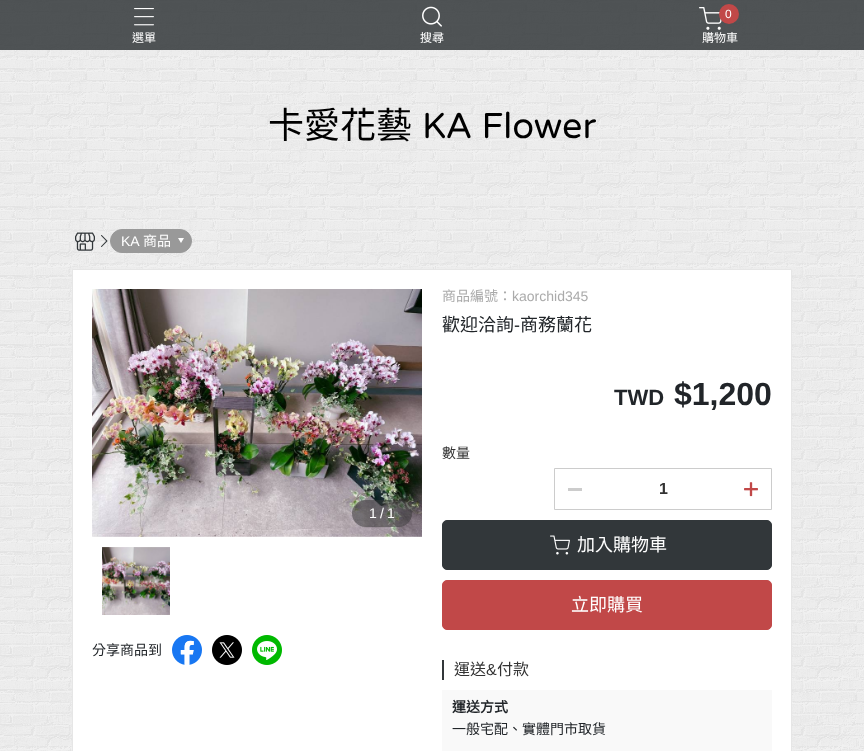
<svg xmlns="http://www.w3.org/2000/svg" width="864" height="751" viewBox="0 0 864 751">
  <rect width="100%" height="100%" fill="#fff"/>
  <image x="0" y="0" width="864" height="751" href="img/1.png"/>
  <path d="M0 0h864v50H0z" fill="#32373ad9"/>
  <image x="134" y="8" width="20" height="18" href="img/2.png"/>
  <image x="422" y="6" width="20" height="21" href="img/3.png"/>
  <image x="699" y="7" width="23" height="23" href="img/4.png"/>
  <circle cx="729" cy="14" r="10" fill="#c14848"/>
  <image x="75" y="232" width="20" height="19" href="img/5.png"/>
  <image x="101" y="235" width="7" height="12" href="img/6.png"/>
  <rect x="110.5" y="229.5" width="81" height="23" rx="11.5" fill="#999" stroke="#999"/>
  <path d="M178 238H184L181 243Z" fill="#fff"/>
  <path d="M73 270h718v481H73z" fill="#fff"/>
  <image x="172" y="635" width="30" height="30" href="img/9.png"/>
  <image x="212" y="635" width="30" height="30" href="img/10.png"/>
  <image x="252" y="635" width="30" height="30" href="img/11.png"/>
  <path d="M554.5 468.5h217v41H554.5z" fill="none" stroke="#ccc"/>
  <path d="M442 660h2v20H442z" fill="#32373a"/>
  <path d="M442 690h330v61H442z" fill="#f9f9f9"/>
  <path d="M72.5 269.5h719v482H72.5z" fill="none" stroke="#e6e6e6"/>
  <image x="92" y="289" width="330" height="248" href="img/7.png"/>
  <rect x="352" y="500" width="60" height="27" rx="13.5" fill="#33333380"/>
  <image x="102" y="547" width="68" height="68" href="img/8.png"/>
  <path d="M568 488h14v3H568z" fill="#ccc"/>
  <image x="744" y="482" width="14" height="15" href="img/12.png"/>
  <rect x="442.5" y="520.5" width="329" height="49" rx="4.5" fill="#32373a" stroke="#32373a"/>
  <image x="550" y="535" width="20" height="20" href="img/13.png"/>
  <rect x="442.5" y="580.5" width="329" height="49" rx="4.5" fill="#c14848" stroke="#c14848"/>
  <g font-family="Noto Sans CJK TC" font-size="12" fill="#fff">
    <text x="132" y="42">選單</text>
    <text x="420" y="42">搜尋</text>
  </g>
  <text x="725" y="18" font-family="Liberation Sans" font-size="12" letter-spacing="1" fill="#fff">0</text>
  <text x="702" y="42" font-family="Noto Sans CJK TC" font-size="12" fill="#fff">購物車</text>
  <text x="268" y="138" font-family="Noto Sans CJK TC" font-size="36" fill="#000">卡愛花藝</text>
  <text x="422" y="138" font-family="Varela Round" font-size="36" fill="#000">KA Flower</text>
  <text x="121" y="246" font-family="Liberation Sans" font-size="14" fill="#fff">KA</text>
  <text x="143" y="246" font-family="Noto Sans CJK TC" font-size="14" fill="#fff">商品</text>
  <g font-family="Liberation Sans" font-size="14" fill="#fff">
    <text x="369" y="518">1</text>
    <text x="380" y="518">/</text>
    <text x="387" y="518">1</text>
  </g>
  <text x="92" y="655" font-family="Noto Sans CJK TC" font-size="14" fill="#212529">分享商品到</text>
  <text x="442" y="301" font-family="Noto Sans CJK TC" font-size="14" fill="#aaa">商品編號：</text>
  <text x="512" y="301" font-family="Liberation Sans" font-size="14" fill="#aaa">kaorchid345</text>
  <text x="442" y="331" font-family="Noto Sans CJK TC" font-size="18" fill="#212529">歡迎洽詢</text>
  <text x="514" y="331" font-family="Liberation Sans" font-size="18" fill="#212529">-</text>
  <text x="520" y="331" font-family="Noto Sans CJK TC" font-size="18" fill="#212529">商務蘭花</text>
  <text x="614" y="405" font-family="Liberation Sans" font-size="22" font-weight="bold" fill="#212529">TWD</text>
  <text x="674" y="405" font-family="Liberation Sans" font-size="32" font-weight="bold" fill="#212529">$1,200</text>
  <text x="442" y="458" font-family="Noto Sans CJK TC" font-size="14" fill="#333">數量</text>
  <text x="659" y="494" font-family="Liberation Sans" font-size="16" font-weight="bold" fill="#333">1</text>
  <g font-family="Noto Sans CJK TC" font-size="18" fill="#fff">
    <text x="577" y="551">加入購物車</text>
    <text x="571" y="611">立即購買</text>
  </g>
  <text x="454" y="675" font-family="Noto Sans CJK TC" font-size="16" fill="#333">運送</text>
  <text x="486" y="675" font-family="Liberation Sans" font-size="16" fill="#333">&amp;</text>
  <text x="497" y="675" font-family="Noto Sans CJK TC" font-size="16" fill="#333">付款</text>
  <text x="452" y="712" font-family="Noto Sans CJK TC" font-size="14" font-weight="bold" fill="#212529">運送方式</text>
  <text x="452" y="734" font-family="Noto Sans CJK TC" font-size="14" fill="#212529">一般宅配、實體門市取貨</text>
</svg>
